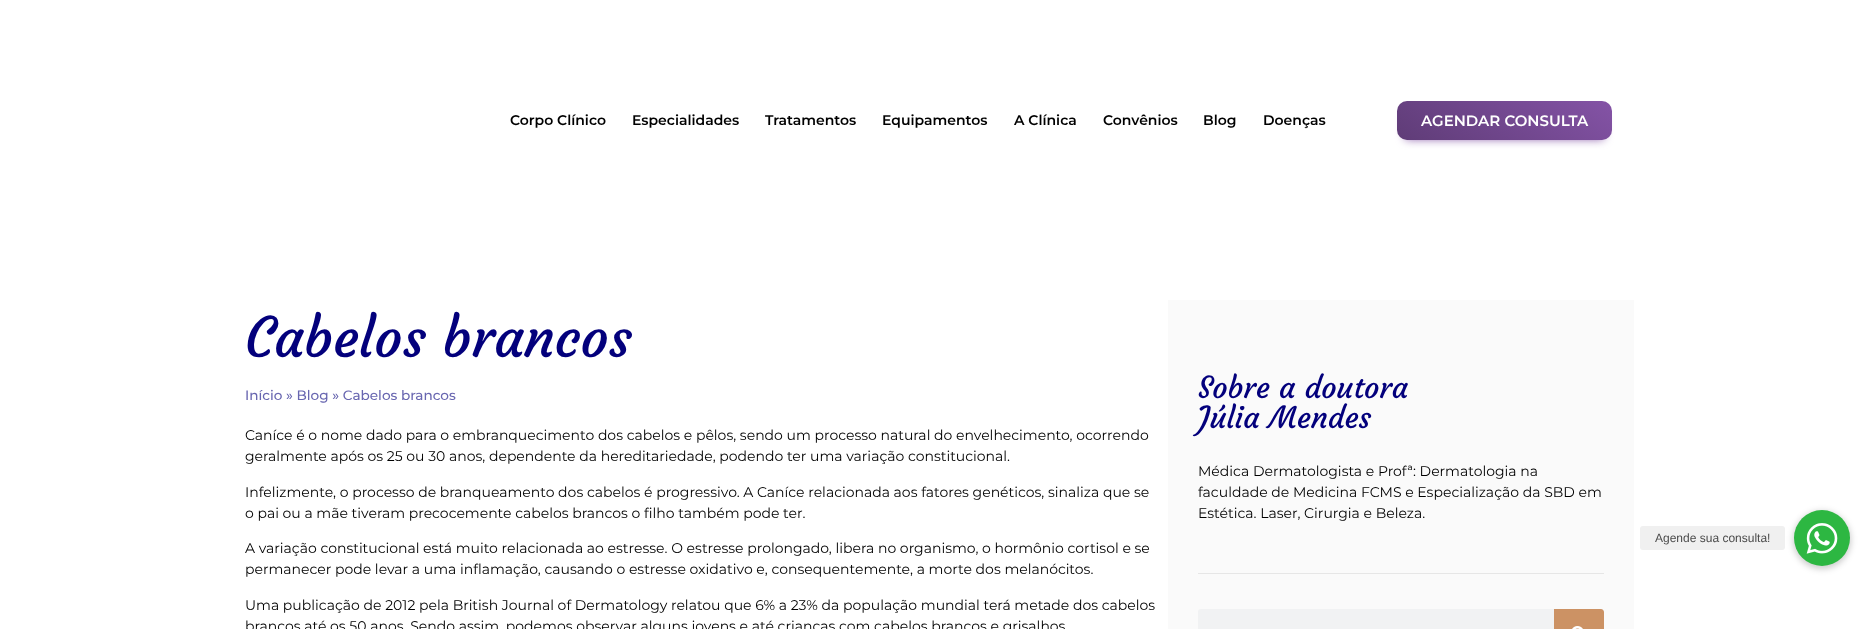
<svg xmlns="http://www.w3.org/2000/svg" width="1869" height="629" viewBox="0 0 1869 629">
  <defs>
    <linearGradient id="g1" gradientUnits="userSpaceOnUse" x1="1549" y1="57" x2="1460" y2="184"><stop offset="0" stop-color="#8453a6"/><stop offset="1" stop-color="#5f3c77"/></linearGradient>
  </defs>
  <rect width="100%" height="100%" fill="#fff"/>
  <rect x="1405" y="116" width="199" height="23" rx="2" fill="#8453a6" filter="blur(5px)"/>
  <rect x="1397" y="101" width="215" height="39" rx="10" fill="url(#g1)"/>
  <path d="M1168 300h466v329H1168z" fill="#fafafa"/>
  <path d="M1198 573h406v1H1198z" fill="#e6e6e6"/>
  <rect x="1198" y="609" width="406" height="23" rx="3" fill="#f1f2f3"/>
  <path d="M1554 609H1601C1602.5 609 1604 610.5 1604 612V629C1604 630.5 1602.5 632 1601 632H1554Z" fill="#cc9264"/>
  <image x="1572" y="626" width="11" height="3" href="img/1.png"/>
  <rect x="1793" y="511" width="58" height="58" rx="29" fill="#00000033" filter="blur(3px)"/>
  <circle cx="1822" cy="538" r="28" fill="#2db742"/>
  <rect x="1640" y="526" width="145" height="24" rx="3" fill="#f0f0f0"/>
  <image x="1806" y="523" width="32" height="31" href="img/2.png"/>
  <g font-family="Montserrat" font-size="14" font-weight="600" fill="#000">
    <text x="510" y="125">Corpo Clínico</text>
    <text x="632" y="125">Especialidades</text>
    <text x="765" y="125">Tratamentos</text>
    <text x="882" y="125">Equipamentos</text>
    <text x="1014" y="125">A Clínica</text>
    <text x="1103" y="125">Convênios</text>
    <text x="1203" y="125">Blog</text>
    <text x="1263" y="125">Doenças</text>
  </g>
  <text x="1421" y="126" font-family="Montserrat" font-size="15" font-weight="600" fill="#fff">AGENDAR CONSULTA</text>
  <text x="245" y="357" font-family="Courgette" font-size="55" fill="#03007c">Cabelos brancos</text>
  <text x="245" y="400" font-family="Montserrat" font-size="13.6" font-weight="500" fill="#6866b0">Início » Blog » Cabelos brancos</text>
  <g font-family="Montserrat" font-size="14" fill="#000">
    <text x="245" y="440">Caníce é o nome dado para o embranquecimento dos cabelos e pêlos, sendo um processo natural do envelhecimento, ocorrendo</text>
    <text x="245" y="461">geralmente após os 25 ou 30 anos, dependente da hereditariedade, podendo ter uma variação constitucional.</text>
    <text x="245" y="497">Infelizmente, o processo de branqueamento dos cabelos é progressivo. A Caníce relacionada aos fatores genéticos, sinaliza que se</text>
    <text x="245" y="518">o pai ou a mãe tiveram precocemente cabelos brancos o filho também pode ter.</text>
    <text x="245" y="553">A variação constitucional está muito relacionada ao estresse. O estresse prolongado, libera no organismo, o hormônio cortisol e se</text>
    <text x="245" y="574">permanecer pode levar a uma inflamação, causando o estresse oxidativo e, consequentemente, a morte dos melanócitos.</text>
    <text x="245" y="610">Uma publicação de 2012 pela British Journal of Dermatology relatou que 6% a 23% da população mundial terá metade dos cabelos</text>
    <text x="245" y="631">brancos até os 50 anos. Sendo assim, podemos observar alguns jovens e até crianças com cabelos brancos e grisalhos</text>
  </g>
  <g font-family="Courgette" font-size="30" fill="#03007c">
    <text x="1198" y="398">Sobre a doutora</text>
    <text x="1198" y="428">Júlia Mendes</text>
  </g>
  <g font-family="Montserrat" font-size="14" fill="#000">
    <text x="1198" y="476">Médica Dermatologista e Profª: Dermatologia na</text>
    <text x="1198" y="497">faculdade de Medicina FCMS e Especialização da SBD em</text>
    <text x="1198" y="518">Estética. Laser, Cirurgia e Beleza.</text>
  </g>
  <text x="1655" y="542" font-family="Liberation Sans" font-size="12" fill="#4b4b4b">Agende sua consulta!</text>
</svg>
